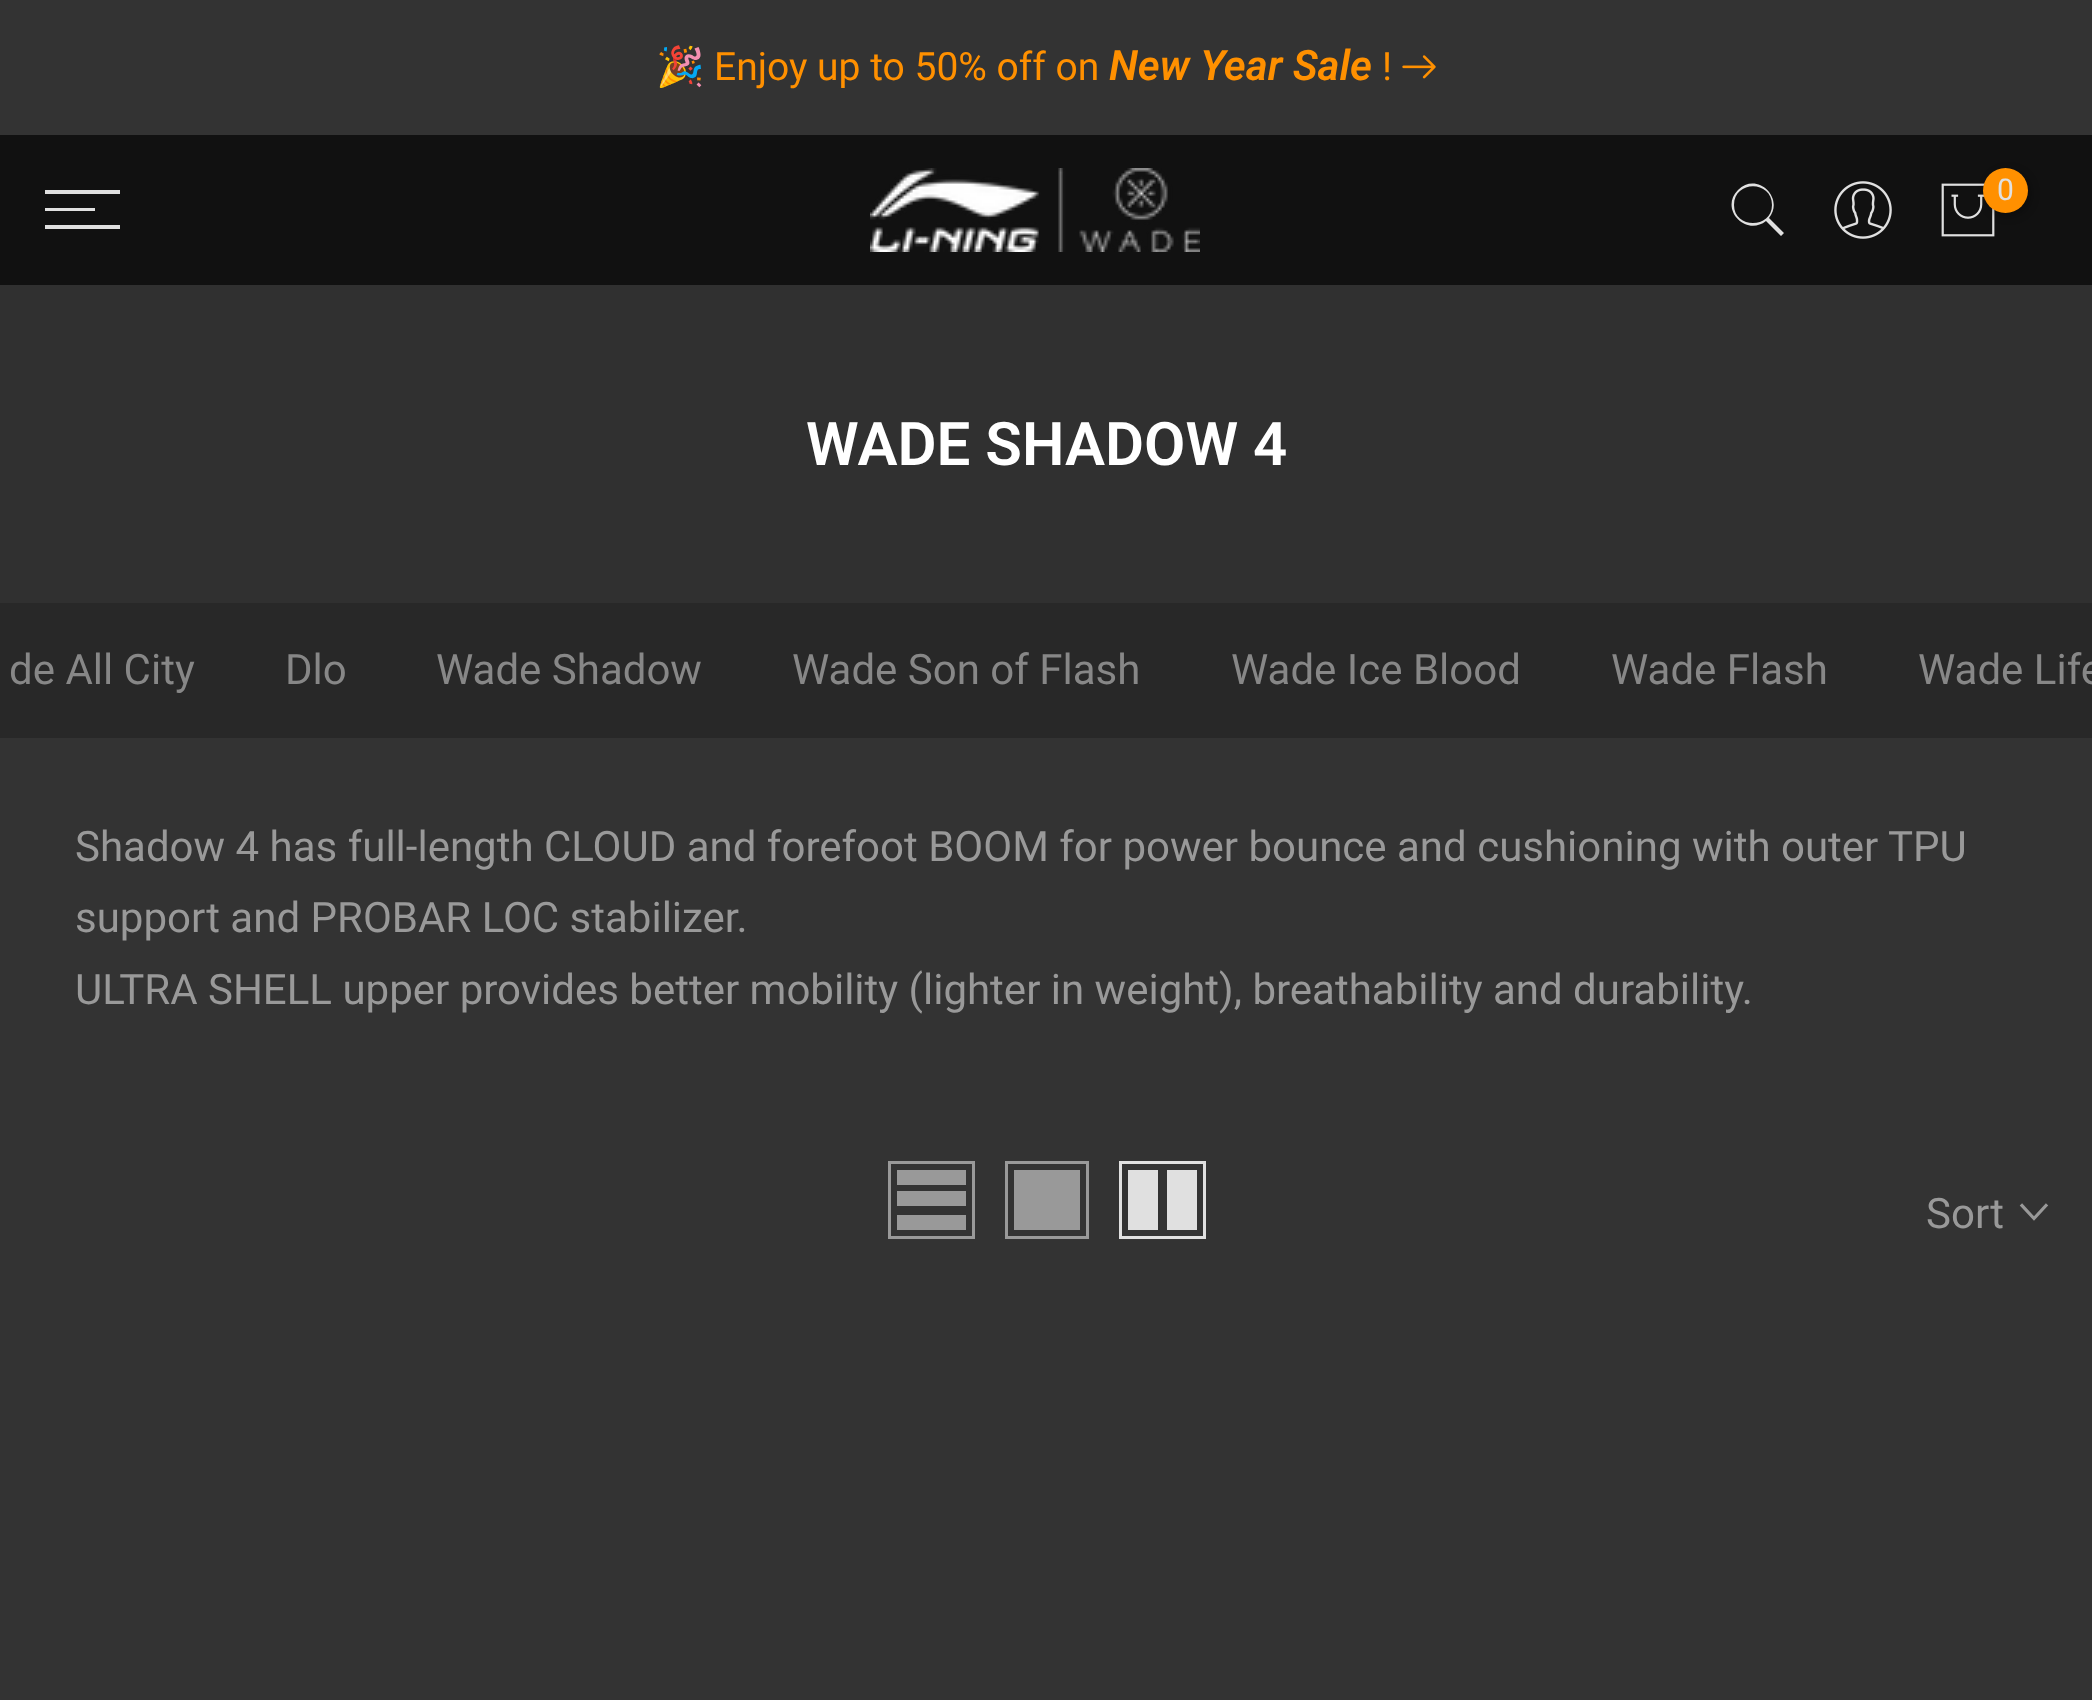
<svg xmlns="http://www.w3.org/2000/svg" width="2092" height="1700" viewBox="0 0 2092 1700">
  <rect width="100%" height="100%" fill="#333"/>
  <image x="1402" y="55" width="34" height="24" href="img/1.png"/>
  <path d="M0 135h2092v150H0z" fill="#111"/>
  <path d="M45 190h75v4H45z" fill="#e0e0e0"/>
  <path d="M45 208h50v3H45z" fill="#e0e0e0"/>
  <path d="M45 225h75v4H45z" fill="#e0e0e0"/>
  <image x="870" y="168" width="330" height="84" href="img/2.png"/>
  <path d="M1784 233L1769 218C1785 198 1757 171 1738 190C1719 209 1746 237 1766 221L1781 236ZM1734 205C1734 180 1772 180 1772 205C1772 229 1734 229 1734 205Z" fill="#e0e0e0"/>
  <image x="1834" y="181" width="58" height="58" href="img/3.png"/>
  <image x="1941" y="183" width="54" height="54" href="img/4.png"/>
  <rect x="1986" y="171" width="45" height="45" rx="22.5" fill="#0000004d" filter="blur(4.5px)"/>
  <circle cx="2005.5" cy="190.5" r="22.5" fill="#ff9000"/>
  <path d="M0 285h2092v318H0z" fill="#303030"/>
  <path d="M0 603h2092v135H0z" fill="#282828"/>
  <path d="M889.5 1162.5h84v75H889.5z" fill="none" stroke="#999" stroke-width="3"/>
  <path d="M897 1215h69v15H897z" fill="#999"/>
  <path d="M897 1191h69v15H897z" fill="#999"/>
  <path d="M897 1170h69v15H897z" fill="#999"/>
  <path d="M1006.5 1162.5h81v75H1006.5z" fill="none" stroke="#999" stroke-width="3"/>
  <path d="M1014 1170h66v60H1014z" fill="#999"/>
  <path d="M1120.5 1162.5h84v75H1120.5z" fill="none" stroke="#e0e0e0" stroke-width="3"/>
  <path d="M1167 1170h30v60H1167z" fill="#e0e0e0"/>
  <path d="M1128 1170h30v60H1128z" fill="#e0e0e0"/>
  <path d="M2046 1205.5L2034 1218.5L2022 1205.5" fill="none" stroke="#999" stroke-width="3.2" stroke-linecap="square"/>
  <text x="656" y="80" font-family="Noto Color Emoji" font-size="39" fill="#ff9000">🎉</text>
  <text x="714" y="80" font-family="Roboto" font-size="39" fill="#ff9000">Enjoy up to 50% off on</text>
  <text x="1109" y="80" font-family="Roboto" font-size="42" font-weight="600" font-style="italic" fill="#ff9000">New Year Sale</text>
  <text x="1382" y="80" font-family="Roboto" font-size="39" fill="#ff9000">!</text>
  <text x="1997" y="200" font-family="Roboto" font-size="30" fill="#e0e0e0">0</text>
  <text x="806" y="465" font-family="Roboto" font-size="60" font-weight="600" fill="#fff">WADE SHADOW 4</text>
  <g font-family="Roboto" font-size="42" fill="#878787">
    <text x="9" y="684">de All City</text>
    <text x="285" y="684">Dlo</text>
    <text x="436" y="684">Wade Shadow</text>
    <text x="792" y="684">Wade Son of Flash</text>
    <text x="1231" y="684">Wade Ice Blood</text>
    <text x="1611" y="684">Wade Flash</text>
    <text x="1918" y="684">Wade Life</text>
  </g>
  <g font-family="Roboto" font-size="42" fill="#999">
    <text x="75" y="861">Shadow 4 has full-length CLOUD and forefoot BOOM for power bounce and cushioning with outer TPU</text>
    <text x="75" y="932">support and PROBAR LOC stabilizer.</text>
    <text x="75" y="1004">ULTRA SHELL upper provides better mobility (lighter in weight), breathability and durability.</text>
    <text x="1926" y="1228">Sort</text>
  </g>
</svg>
